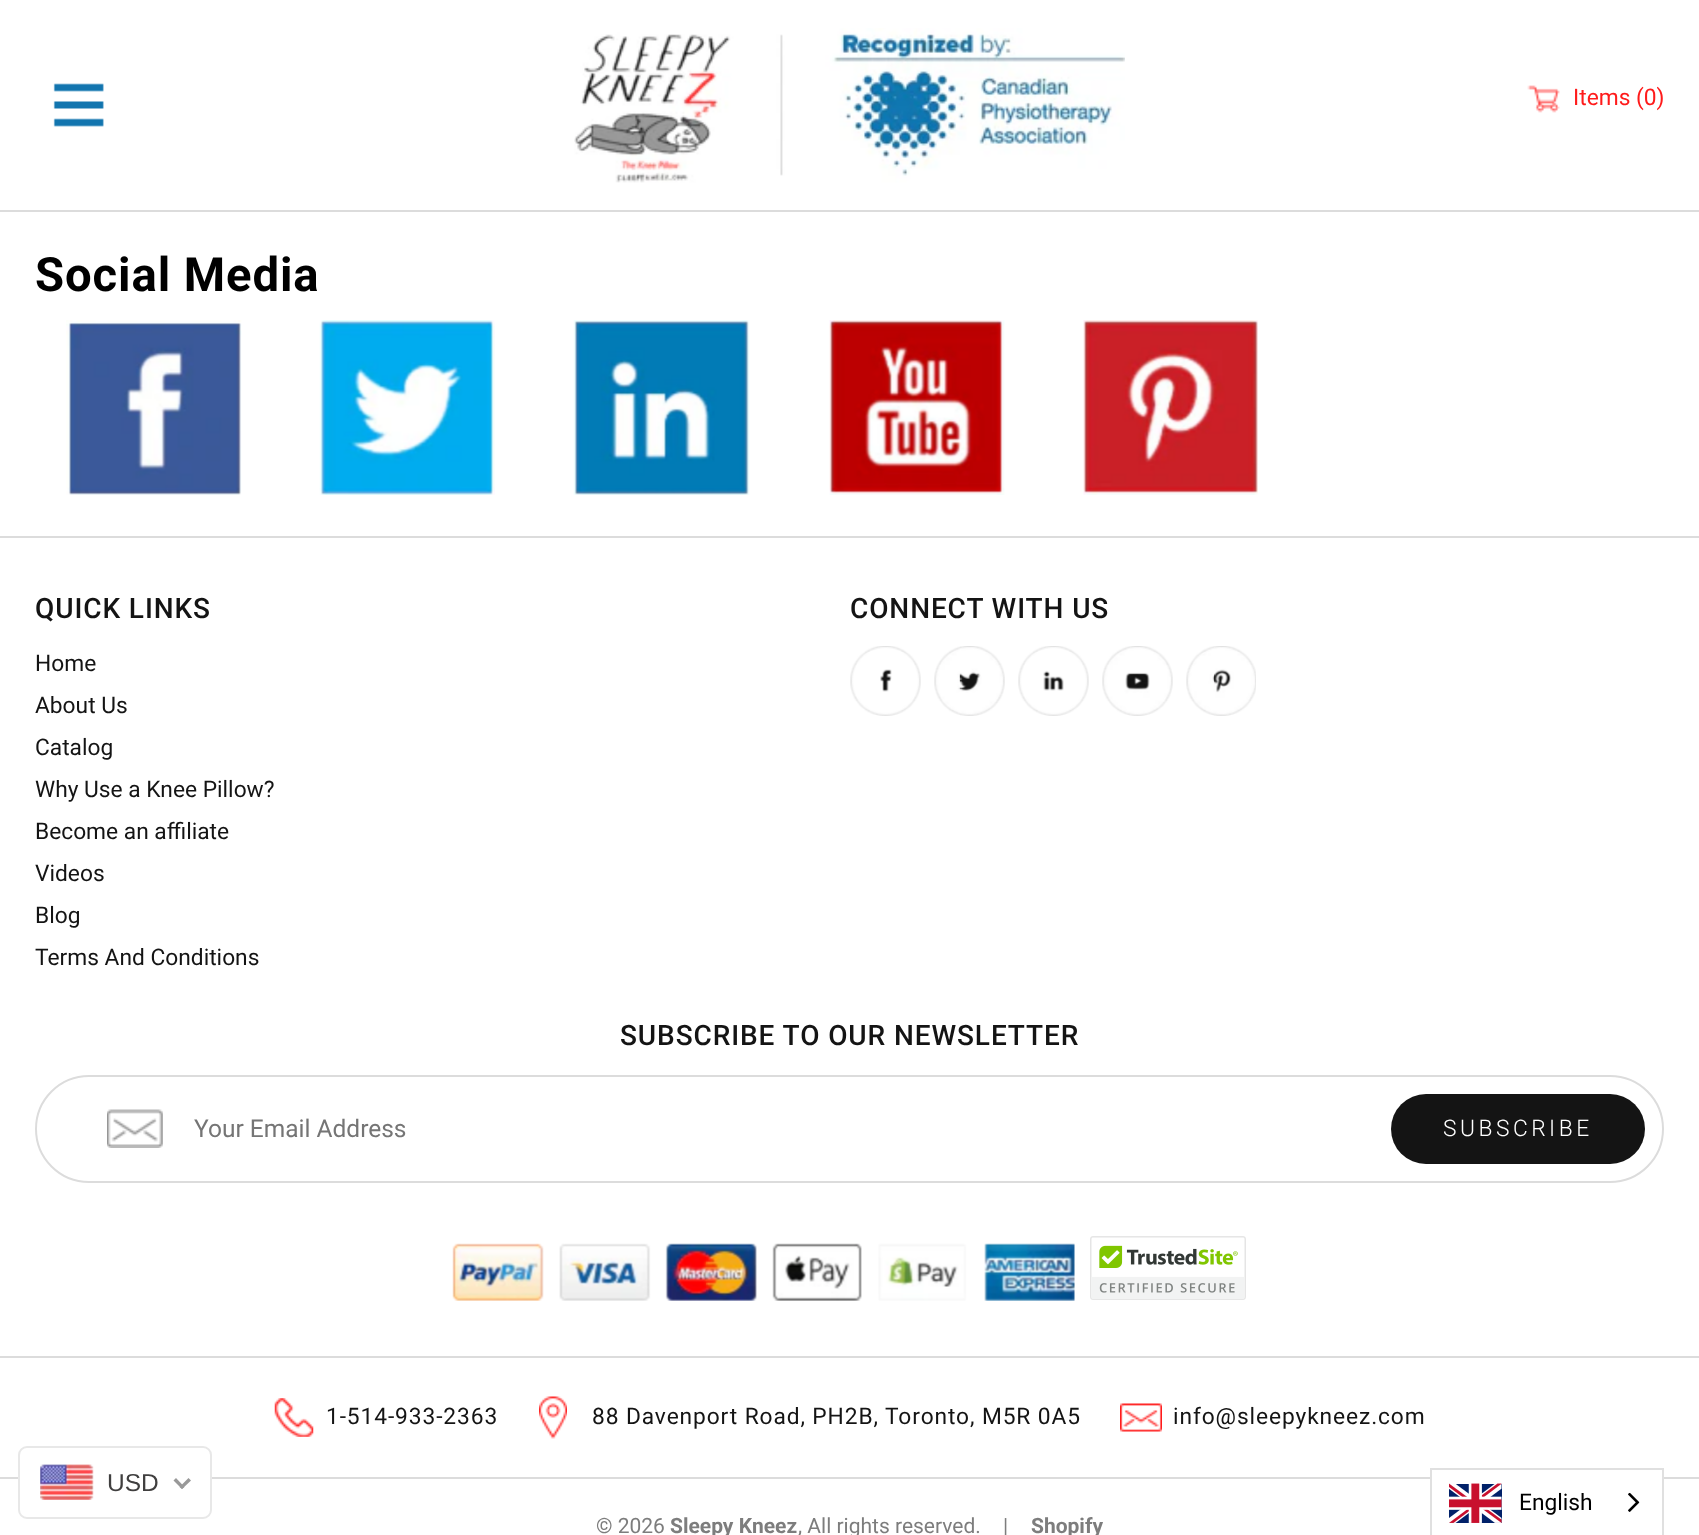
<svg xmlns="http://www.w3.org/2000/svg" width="1699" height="1535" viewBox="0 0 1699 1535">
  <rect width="100%" height="100%" fill="#fff"/>
  <path d="M0 210h1699v2H0z" fill="#dcdcdc"/>
  <image x="53" y="83" width="51" height="44" href="img/1.png"/>
  <image x="574" y="28" width="551" height="155" href="img/2.png"/>
  <image x="1527" y="85" width="33" height="28" href="img/3.png"/>
  <image x="66" y="320" width="176" height="175" href="img/4.png"/>
  <image x="319" y="320" width="176" height="175" href="img/5.png"/>
  <image x="573" y="320" width="177" height="175" href="img/6.png"/>
  <image x="829" y="320" width="176" height="175" href="img/7.png"/>
  <image x="1083" y="320" width="175" height="175" href="img/8.png"/>
  <path d="M0 536h1699v2H0z" fill="#dcdcdc"/>
  <image x="850" y="646" width="71" height="70" href="img/9.png"/>
  <image x="934" y="646" width="71" height="70" href="img/10.png"/>
  <image x="1018" y="646" width="71" height="70" href="img/11.png"/>
  <image x="1102" y="646" width="71" height="70" href="img/12.png"/>
  <image x="1186" y="646" width="70" height="70" href="img/13.png"/>
  <rect x="36" y="1076" width="1627" height="106" rx="53" fill="none" stroke="#dcdcdc" stroke-width="2"/>
  <image x="107" y="1109" width="56" height="39" href="img/14.png"/>
  <rect x="1391" y="1094" width="254" height="70" rx="35" fill="#141414"/>
  <image x="452" y="1243" width="623" height="58" href="img/15.png"/>
  <image x="1090" y="1236" width="156" height="64" href="img/16.png"/>
  <path d="M0 1356h1699v2H0z" fill="#dcdcdc"/>
  <path d="M0 1477h1699v2H0z" fill="#dcdcdc"/>
  <image x="274" y="1398" width="40" height="39" href="img/17.png"/>
  <image x="539" y="1396" width="28" height="43" href="img/18.png"/>
  <image x="1120" y="1403" width="42" height="29" href="img/19.png"/>
  <rect x="19" y="1447" width="192" height="71" rx="8" fill="#fff" stroke="#e8e8e8" stroke-width="2"/>
  <image x="40" y="1464" width="54" height="36" href="img/20.png"/>
  <path d="M188.5 1478L191 1480.5L182 1489L179.5 1487Z" fill="#999"/>
  <path d="M176 1478L184.5 1487L182 1489L173.5 1480.5Z" fill="#999"/>
  <path d="M1432 1477h230v2H1432z" fill="#fff"/>
  <path d="M1431 1469h232v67H1431z" fill="none" stroke="#e0e0e0" stroke-width="2"/>
  <image x="1449" y="1483" width="53" height="40" href="img/21.png"/>
  <image x="1628" y="1492" width="12" height="20" href="img/22.png"/>
  <text x="1573" y="105" font-family="Roboto" font-size="22.75" fill="#ff1b1b">Items (0)</text>
  <text x="35" y="291" font-family="Roboto" font-size="47.25" font-weight="bold" letter-spacing="0.9" fill="#000">Social Media</text>
  <text x="35" y="618" font-family="Roboto" font-size="28" font-weight="500" letter-spacing="0.9" fill="#141414">QUICK LINKS</text>
  <g font-family="Roboto" font-size="22.75" fill="#141414">
    <text x="35" y="671">Home</text>
    <text x="35" y="713">About Us</text>
    <text x="35" y="755">Catalog</text>
    <text x="35" y="797">Why Use a Knee Pillow?</text>
    <text x="35" y="839">Become an affiliate</text>
    <text x="35" y="881">Videos</text>
    <text x="35" y="923">Blog</text>
    <text x="35" y="965">Terms And Conditions</text>
  </g>
  <g font-family="Roboto" font-size="28" font-weight="500" letter-spacing="0.9" fill="#141414">
    <text x="850" y="618">CONNECT WITH US</text>
    <text x="620" y="1045">SUBSCRIBE TO OUR NEWSLETTER</text>
  </g>
  <text x="194" y="1137" font-family="Roboto" font-size="24.5" fill="#757575">Your Email Address</text>
  <text x="1443" y="1136" font-family="Roboto" font-size="22.75" font-weight="300" letter-spacing="3.5" fill="#fff">SUBSCRIBE</text>
  <g font-family="Roboto" font-size="22.75" letter-spacing="0.9" fill="#141414">
    <text x="326" y="1424">1-514-933-2363</text>
    <text x="592" y="1424">88 Davenport Road, PH2B, Toronto, M5R 0A5</text>
    <text x="1173" y="1424">info@sleepykneez.com</text>
  </g>
  <text x="596" y="1533" font-family="Roboto" font-size="21" fill="#7d7d7d">© 2026</text>
  <text x="670" y="1533" font-family="Roboto" font-size="21" font-weight="bold" fill="#7d7d7d">Sleepy Kneez</text>
  <g font-family="Roboto" font-size="21" fill="#7d7d7d">
    <text x="798" y="1533">, All rights reserved.</text>
    <text x="1003" y="1533">|</text>
  </g>
  <text x="1031" y="1533" font-family="Roboto" font-size="21" font-weight="bold" fill="#7d7d7d">Shopify</text>
  <text x="107" y="1491" font-family="Liberation Sans" font-size="24.5" fill="#403f3f">USD</text>
  <text x="1519" y="1510" font-family="Roboto" font-size="22.75" fill="#000">English</text>
</svg>
